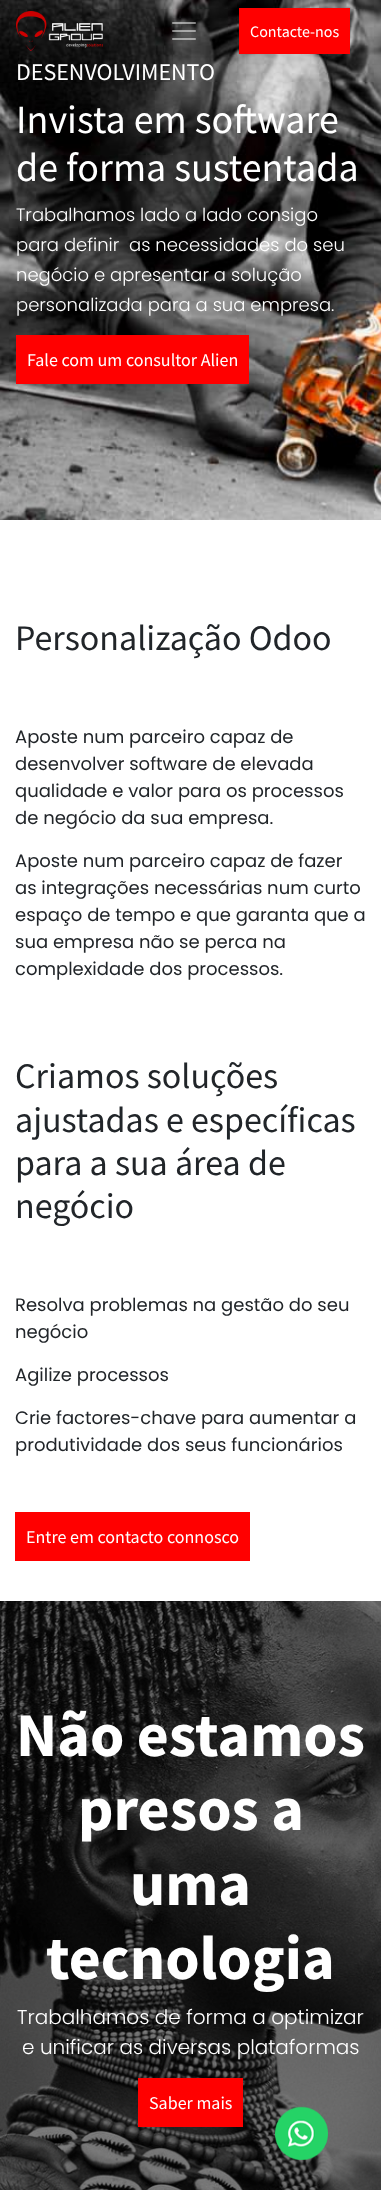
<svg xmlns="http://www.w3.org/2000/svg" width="381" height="2190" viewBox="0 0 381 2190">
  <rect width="100%" height="100%" fill="#fff"/>
  <image x="0" y="0" width="381" height="520" href="img/3.png"/>
  <image x="16" y="11" width="87" height="40" href="img/1.png"/>
  <image x="172" y="22" width="24" height="18" href="img/2.png"/>
  <path d="M239 8h111v46H239z" fill="#f00"/>
  <path d="M16 335h233v49H16z" fill="#f00"/>
  <path d="M15 1512h235v49H15z" fill="#f00"/>
  <image x="0" y="1601" width="381" height="589" href="img/4.png"/>
  <path d="M138 2078h105v49H138z" fill="#f00"/>
  <image x="275" y="2106" width="53" height="54" href="img/5.png"/>
  <text x="250" y="37" font-family="Source Sans Pro" font-size="16" fill="#fff">Contacte-nos</text>
  <text x="16" y="80" font-family="Source Sans Pro" font-size="24" fill="#fff">DESENVOLVIMENTO</text>
  <g font-family="Source Sans Pro" font-size="40" fill="#fff">
    <text x="16" y="133">Invista em software</text>
    <text x="16" y="181">de forma sustentada</text>
  </g>
  <g font-family="Poppins" font-size="18" font-weight="300" fill="#fff">
    <text x="16" y="221">Trabalhamos lado a lado consigo</text>
    <text x="16" y="251" xml:space="preserve">para definir  as necessidades do seu</text>
    <text x="16" y="281">negócio e apresentar a solução</text>
    <text x="16" y="311">personalizada para a sua empresa.</text>
  </g>
  <text x="27" y="366" font-family="Source Sans Pro" font-size="18" fill="#fff">Fale com um consultor Alien</text>
  <text x="15" y="650" font-family="Source Sans Pro" font-size="36" fill="#212529">Personalização Odoo</text>
  <g font-family="Poppins" font-size="18" fill="#212529">
    <text x="15" y="743">Aposte num parceiro capaz de</text>
    <text x="15" y="770">desenvolver software de elevada</text>
    <text x="15" y="797">qualidade e valor para os processos</text>
    <text x="15" y="824">de negócio da sua empresa.</text>
    <text x="15" y="867">Aposte num parceiro capaz de fazer</text>
    <text x="15" y="894">as integrações necessárias num curto</text>
    <text x="15" y="921">espaço de tempo e que garanta que a</text>
    <text x="15" y="948">sua empresa não se perca na</text>
    <text x="15" y="975">complexidade dos processos.</text>
  </g>
  <g font-family="Source Sans Pro" font-size="36" fill="#212529">
    <text x="15" y="1088">Criamos soluções</text>
    <text x="15" y="1132">ajustadas e específicas</text>
    <text x="15" y="1175">para a sua área de</text>
    <text x="15" y="1218">negócio</text>
  </g>
  <g font-family="Poppins" font-size="18" fill="#212529">
    <text x="15" y="1311">Resolva problemas na gestão do seu</text>
    <text x="15" y="1338">negócio</text>
    <text x="15" y="1381">Agilize processos</text>
    <text x="15" y="1424">Crie factores-chave para aumentar a</text>
    <text x="15" y="1451">produtividade dos seus funcionários</text>
  </g>
  <text x="26" y="1543" font-family="Source Sans Pro" font-size="18" fill="#fff">Entre em contacto connosco</text>
  <g font-family="Source Sans Pro" font-size="62" font-weight="bold" fill="#fff">
    <text x="16" y="1756">Não estamos</text>
    <text x="78" y="1830">presos a</text>
    <text x="130" y="1905">uma</text>
    <text x="46" y="1979">tecnologia</text>
  </g>
  <g font-family="Poppins" font-size="20" font-weight="300" fill="#fff">
    <text x="17" y="2024">Trabalhamos de forma a optimizar</text>
    <text x="22" y="2054">e unificar as diversas plataformas</text>
  </g>
  <text x="149" y="2109" font-family="Source Sans Pro" font-size="18" fill="#fff">Saber mais</text>
</svg>
